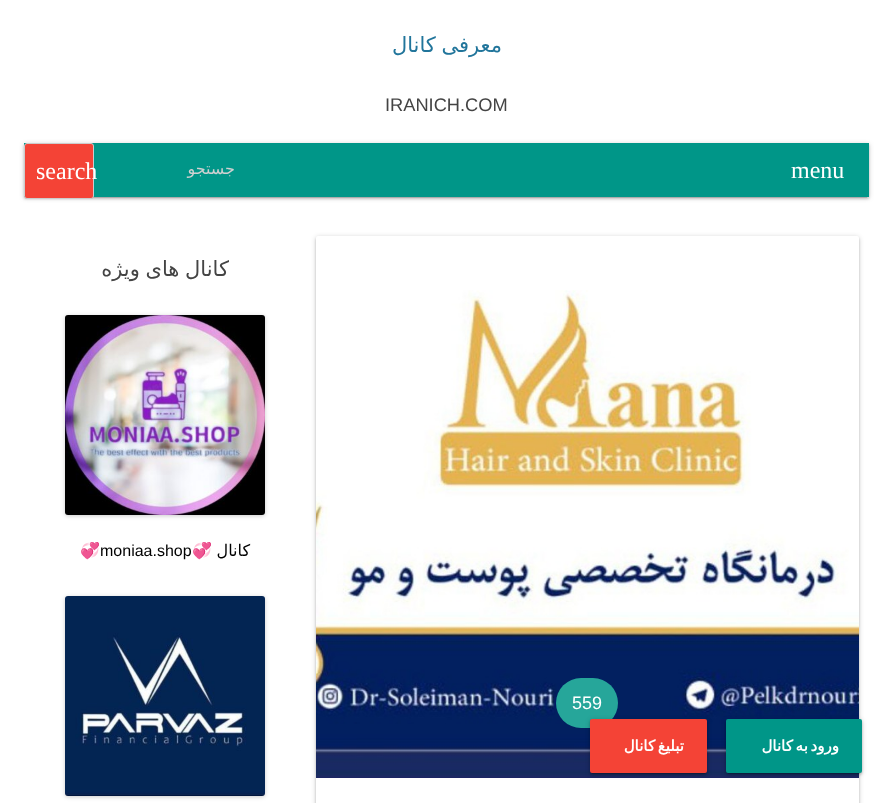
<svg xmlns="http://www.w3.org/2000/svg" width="893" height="803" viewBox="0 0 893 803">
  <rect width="100%" height="100%" fill="#fff"/>
  <path d="M24 144h845v54H24z" fill="#00000033" filter="blur(2.5px)"/>
  <path d="M26 148h841v50H26z" fill="#0000001f" filter="blur(0.5px)"/>
  <path d="M24 145h845v54H24z" fill="#00000024" filter="blur(1px)"/>
  <path d="M24 143h845v54H24z" fill="#009688"/>
  <rect x="24.5" y="143.5" width="69" height="55" rx="2.5" fill="#f44336" stroke="#ccc"/>
  <rect x="65" y="316" width="200" height="200" rx="3" fill="#00000033" filter="blur(2px)"/>
  <image x="65" y="315" width="200" height="200" href="img/1.png"/>
  <rect x="65" y="597" width="200" height="200" rx="3" fill="#00000033" filter="blur(2px)"/>
  <image x="65" y="596" width="200" height="200" href="img/2.png"/>
  <rect x="316" y="237" width="543" height="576" rx="2" fill="#00000033" filter="blur(2.5px)"/>
  <rect x="316" y="238" width="543" height="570" rx="2" fill="#00000024" filter="blur(1px)"/>
  <rect x="316" y="236" width="543" height="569" rx="2" fill="#fff"/>
  <image x="316" y="290" width="543" height="488" href="img/3.png"/>
  <rect x="556" y="678" width="62" height="50" rx="25" fill="#26a69a"/>
  <rect x="726" y="720" width="136" height="54" rx="2" fill="#00000033" filter="blur(2.5px)"/>
  <path d="M728 724h132v50H728z" fill="#0000001f" filter="blur(0.5px)"/>
  <rect x="726" y="721" width="136" height="54" rx="2" fill="#00000024" filter="blur(1px)"/>
  <rect x="726" y="719" width="136" height="54" rx="2" fill="#009688"/>
  <rect x="590" y="720" width="117" height="54" rx="2" fill="#00000033" filter="blur(2.5px)"/>
  <path d="M592 724h113v50H592z" fill="#0000001f" filter="blur(0.5px)"/>
  <rect x="590" y="721" width="117" height="54" rx="2" fill="#00000024" filter="blur(1px)"/>
  <rect x="590" y="719" width="117" height="54" rx="2" fill="#f44336"/>
  <text x="502" y="52" word-spacing="-1" font-family="DejaVu Sans" font-size="21" direction="rtl" fill="#21759b">معرفی کانال</text>
  <text x="385" y="111" font-family="Liberation Sans" font-size="18.25" fill="#444">IRANICH.COM</text>
  <text x="791" y="178" font-family="Liberation Serif" font-size="24" fill="#fff">menu</text>
  <text x="235" y="174" font-family="DejaVu Sans" font-size="16" direction="rtl" fill="#d1d1d1">جستجو</text>
  <text x="36" y="179" font-family="Liberation Serif" font-size="24" fill="#fff">search</text>
  <text x="229" y="276" word-spacing="-1" font-family="DejaVu Sans" font-size="21" direction="rtl" fill="#444">کانال های ویژه</text>
  <text x="250" y="556" font-family="DejaVu Sans" font-size="16" direction="rtl" fill="#000">کانال</text>
  <text x="212" y="556" font-family="Noto Color Emoji" font-size="16" direction="rtl" fill="#000">💞</text>
  <text x="100" y="556" font-family="Liberation Sans" font-size="16" fill="#000">moniaa.shop</text>
  <text x="80" y="556" font-family="Noto Color Emoji" font-size="16" fill="#000">💞</text>
  <text x="572" y="709" font-family="Liberation Sans" font-size="18" fill="#fff">559</text>
  <g font-family="DejaVu Sans" font-size="15" font-weight="bold" letter-spacing="0.5" direction="rtl" fill="#fff">
    <text x="839" y="751" word-spacing="-2">ورود به کانال</text>
    <text x="684" y="751" word-spacing="-2">تبلیغ کانال</text>
  </g>
</svg>
